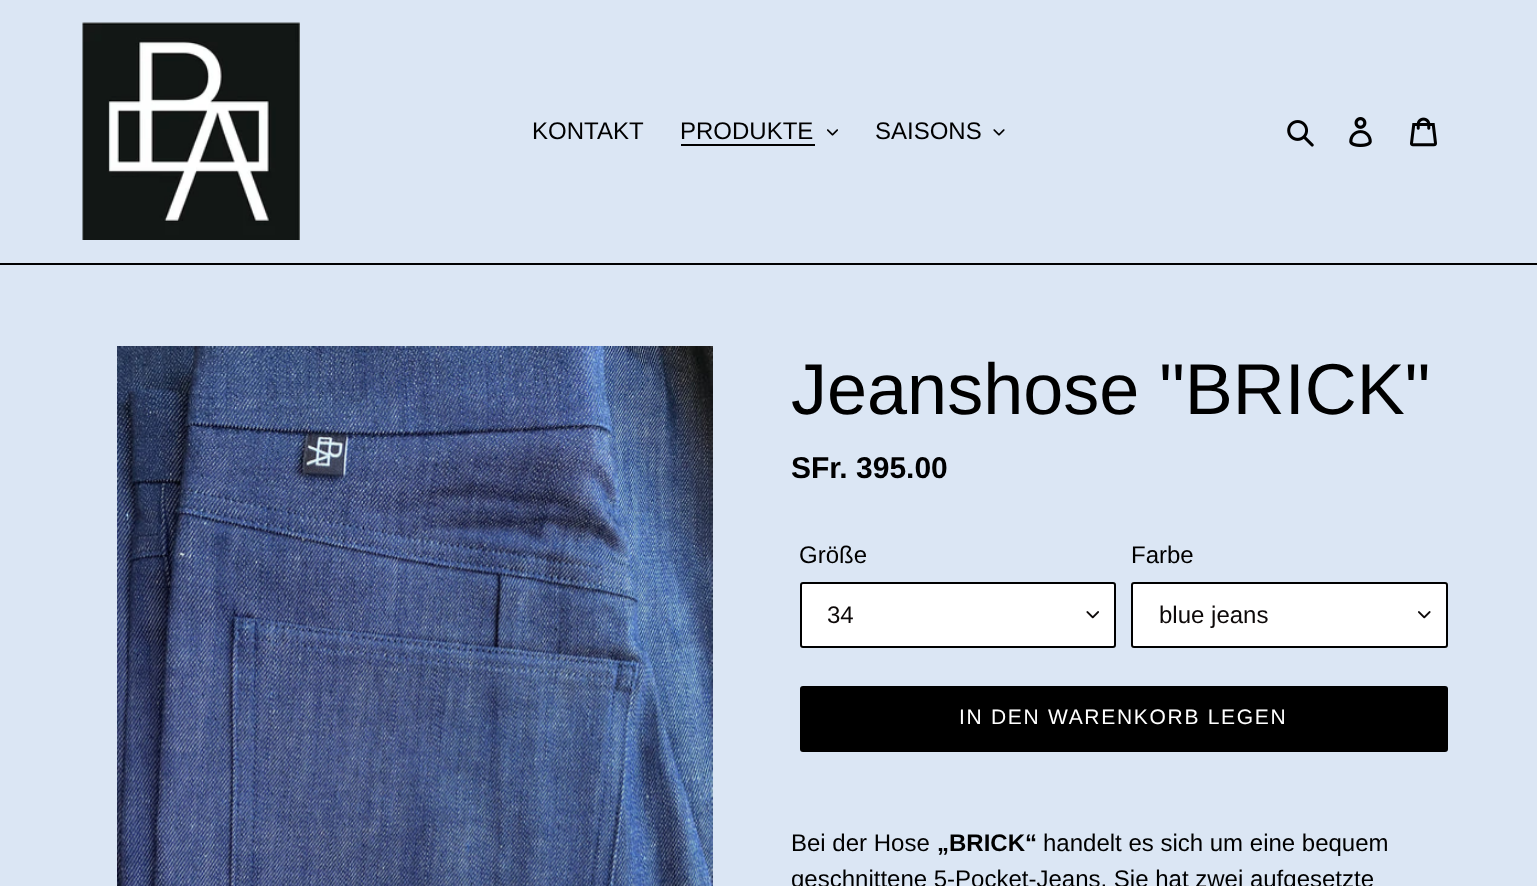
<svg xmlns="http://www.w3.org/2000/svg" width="1537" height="886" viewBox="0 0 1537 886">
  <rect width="100%" height="100%" fill="#dbe6f4"/>
  <path d="M0 263h1537v2H0z" fill="#000"/>
  <image x="82" y="22" width="218" height="218" href="img/1.png"/>
  <path d="M681 144h134v2H681z" fill="#000"/>
  <image x="827" y="129" width="11" height="7" href="img/2.png"/>
  <image x="993" y="129" width="12" height="7" href="img/3.png"/>
  <image x="1287" y="120" width="27" height="27" href="img/4.png"/>
  <image x="1349" y="117" width="23" height="30" href="img/5.png"/>
  <image x="1410" y="117" width="27" height="30" href="img/6.png"/>
  <image x="117" y="346" width="596" height="540" href="img/7.png"/>
  <rect x="800" y="582" width="316" height="66" rx="3" fill="#fff"/>
  <image x="1086" y="611" width="13" height="8" href="img/8.png"/>
  <rect x="801" y="583" width="314" height="64" rx="2" fill="none" stroke="#000" stroke-width="2"/>
  <rect x="1131" y="582" width="317" height="66" rx="3" fill="#fff"/>
  <image x="1418" y="611" width="13" height="8" href="img/9.png"/>
  <rect x="1132" y="583" width="315" height="64" rx="2" fill="none" stroke="#000" stroke-width="2"/>
  <rect x="800" y="686" width="648" height="66" rx="3" fill="#000"/>
  <g font-family="Liberation Sans" font-size="24" fill="#000">
    <text x="532" y="139">KONTAKT</text>
    <text x="680" y="139">PRODUKTE</text>
    <text x="875" y="139">SAISONS</text>
  </g>
  <text x="791" y="414" font-family="Liberation Sans" font-size="72" fill="#000">Jeanshose "BRICK"</text>
  <text x="791" y="478" font-family="Liberation Sans" font-size="30" font-weight="bold" fill="#000">SFr. 395.00</text>
  <text x="799" y="563" font-family="Liberation Sans" font-size="24" fill="#000">Größe</text>
  <text x="827" y="623" font-family="Liberation Sans" font-size="24" fill="#0d0909">34</text>
  <text x="1131" y="563" font-family="Liberation Sans" font-size="24" fill="#000">Farbe</text>
  <text x="1159" y="623" font-family="Liberation Sans" font-size="24" fill="#0d0909">blue jeans</text>
  <text x="959" y="724" font-family="Liberation Sans" font-size="21" letter-spacing="1.7" fill="#fff">IN DEN WARENKORB LEGEN</text>
  <text x="791" y="851" font-family="Liberation Sans" font-size="24" fill="#000">Bei der Hose</text>
  <text x="937" y="851" font-family="Liberation Sans" font-size="24" font-weight="bold" fill="#000">„BRICK“</text>
  <g font-family="Liberation Sans" font-size="24" fill="#000">
    <text x="1043" y="851">handelt es sich um eine bequem</text>
    <text x="791" y="887">geschnittene 5-Pocket-Jeans. Sie hat zwei aufgesetzte</text>
  </g>
</svg>
